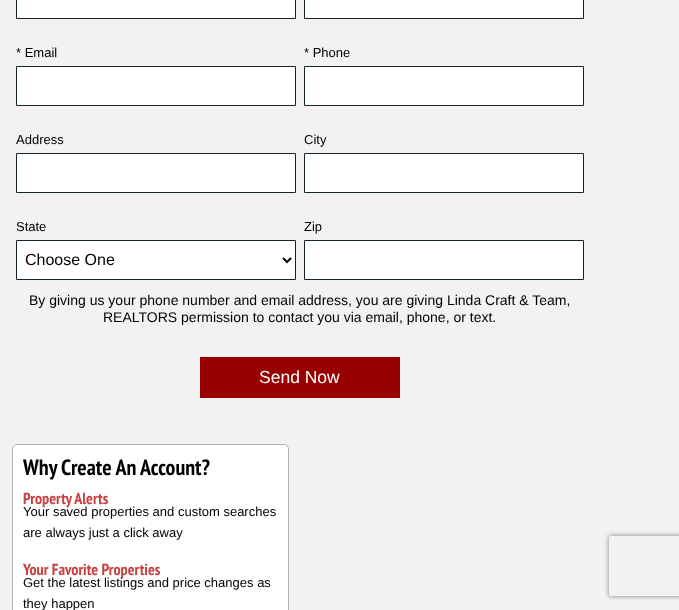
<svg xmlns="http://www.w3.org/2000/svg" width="679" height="610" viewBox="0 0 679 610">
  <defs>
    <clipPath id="clip1"><path d="M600 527H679V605H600ZM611 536H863C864 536 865 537 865 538V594C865 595 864 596 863 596H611C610 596 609 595 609 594V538C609 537 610 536 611 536Z" clip-rule="evenodd"/></clipPath>
  </defs>
  <rect width="100%" height="100%" fill="#f2f2f2"/>
  <path d="M16.5 -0.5h279v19H16.5z" fill="#fff" stroke="#17252d"/>
  <path d="M304.5 -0.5h279v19H304.5z" fill="#fff" stroke="#17252d"/>
  <path d="M16.5 66.5h279v39H16.5z" fill="#fff" stroke="#17252d"/>
  <path d="M304.5 66.5h279v39H304.5z" fill="#fff" stroke="#17252d"/>
  <path d="M16.5 153.5h279v39H16.5z" fill="#fff" stroke="#17252d"/>
  <path d="M304.5 153.5h279v39H304.5z" fill="#fff" stroke="#17252d"/>
  <path d="M16.5 240.5h279v39H16.5z" fill="#fff" stroke="#17252d"/>
  <path d="M283 258L287 262L291 258" fill="none" stroke="#000" stroke-width="2"/>
  <path d="M304.5 240.5h279v39H304.5z" fill="#fff" stroke="#17252d"/>
  <path d="M200 357h200v41H200z" fill="#900"/>
  <rect x="12.5" y="444.5" width="276" height="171" rx="4.5" fill="#fff" stroke="#b3b3b3"/>
  <g clip-path="url(#clip1)">
    <rect x="609" y="536" width="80" height="60" rx="2" fill="#808080" filter="blur(2.5px)"/>
  </g>
  <g font-family="Liberation Sans" font-size="13" fill="#000">
    <text x="16" y="57">* Email</text>
    <text x="304" y="57">* Phone</text>
    <text x="16" y="144">Address</text>
    <text x="304" y="144">City</text>
    <text x="16" y="231">State</text>
  </g>
  <text x="25" y="265" font-family="Liberation Sans" font-size="16" fill="#000">Choose One</text>
  <text x="304" y="231" font-family="Liberation Sans" font-size="13" fill="#000">Zip</text>
  <g font-family="Liberation Sans" font-size="14" fill="#000">
    <text x="29" y="305">By giving us your phone number and email address, you are giving Linda Craft &amp; Team,</text>
    <text x="103" y="322">REALTORS permission to contact you via email, phone, or text.</text>
  </g>
  <text x="259" y="383" font-family="Liberation Sans" font-size="17.5" fill="#fff">Send Now</text>
  <text x="23" y="475" font-family="PT Sans Narrow" font-size="22" font-weight="bold" fill="#000">Why Create An Account?</text>
  <text x="23" y="504" font-family="PT Sans Narrow" font-size="16" font-weight="bold" fill="#c84141">Property Alerts</text>
  <g font-family="Liberation Sans" font-size="13" fill="#000">
    <text x="23" y="516">Your saved properties and custom searches</text>
    <text x="23" y="537">are always just a click away</text>
  </g>
  <text x="23" y="575" font-family="PT Sans Narrow" font-size="16" font-weight="bold" fill="#c84141">Your Favorite Properties</text>
  <g font-family="Liberation Sans" font-size="13" fill="#000">
    <text x="23" y="587">Get the latest listings and price changes as</text>
    <text x="23" y="608">they happen</text>
  </g>
</svg>
